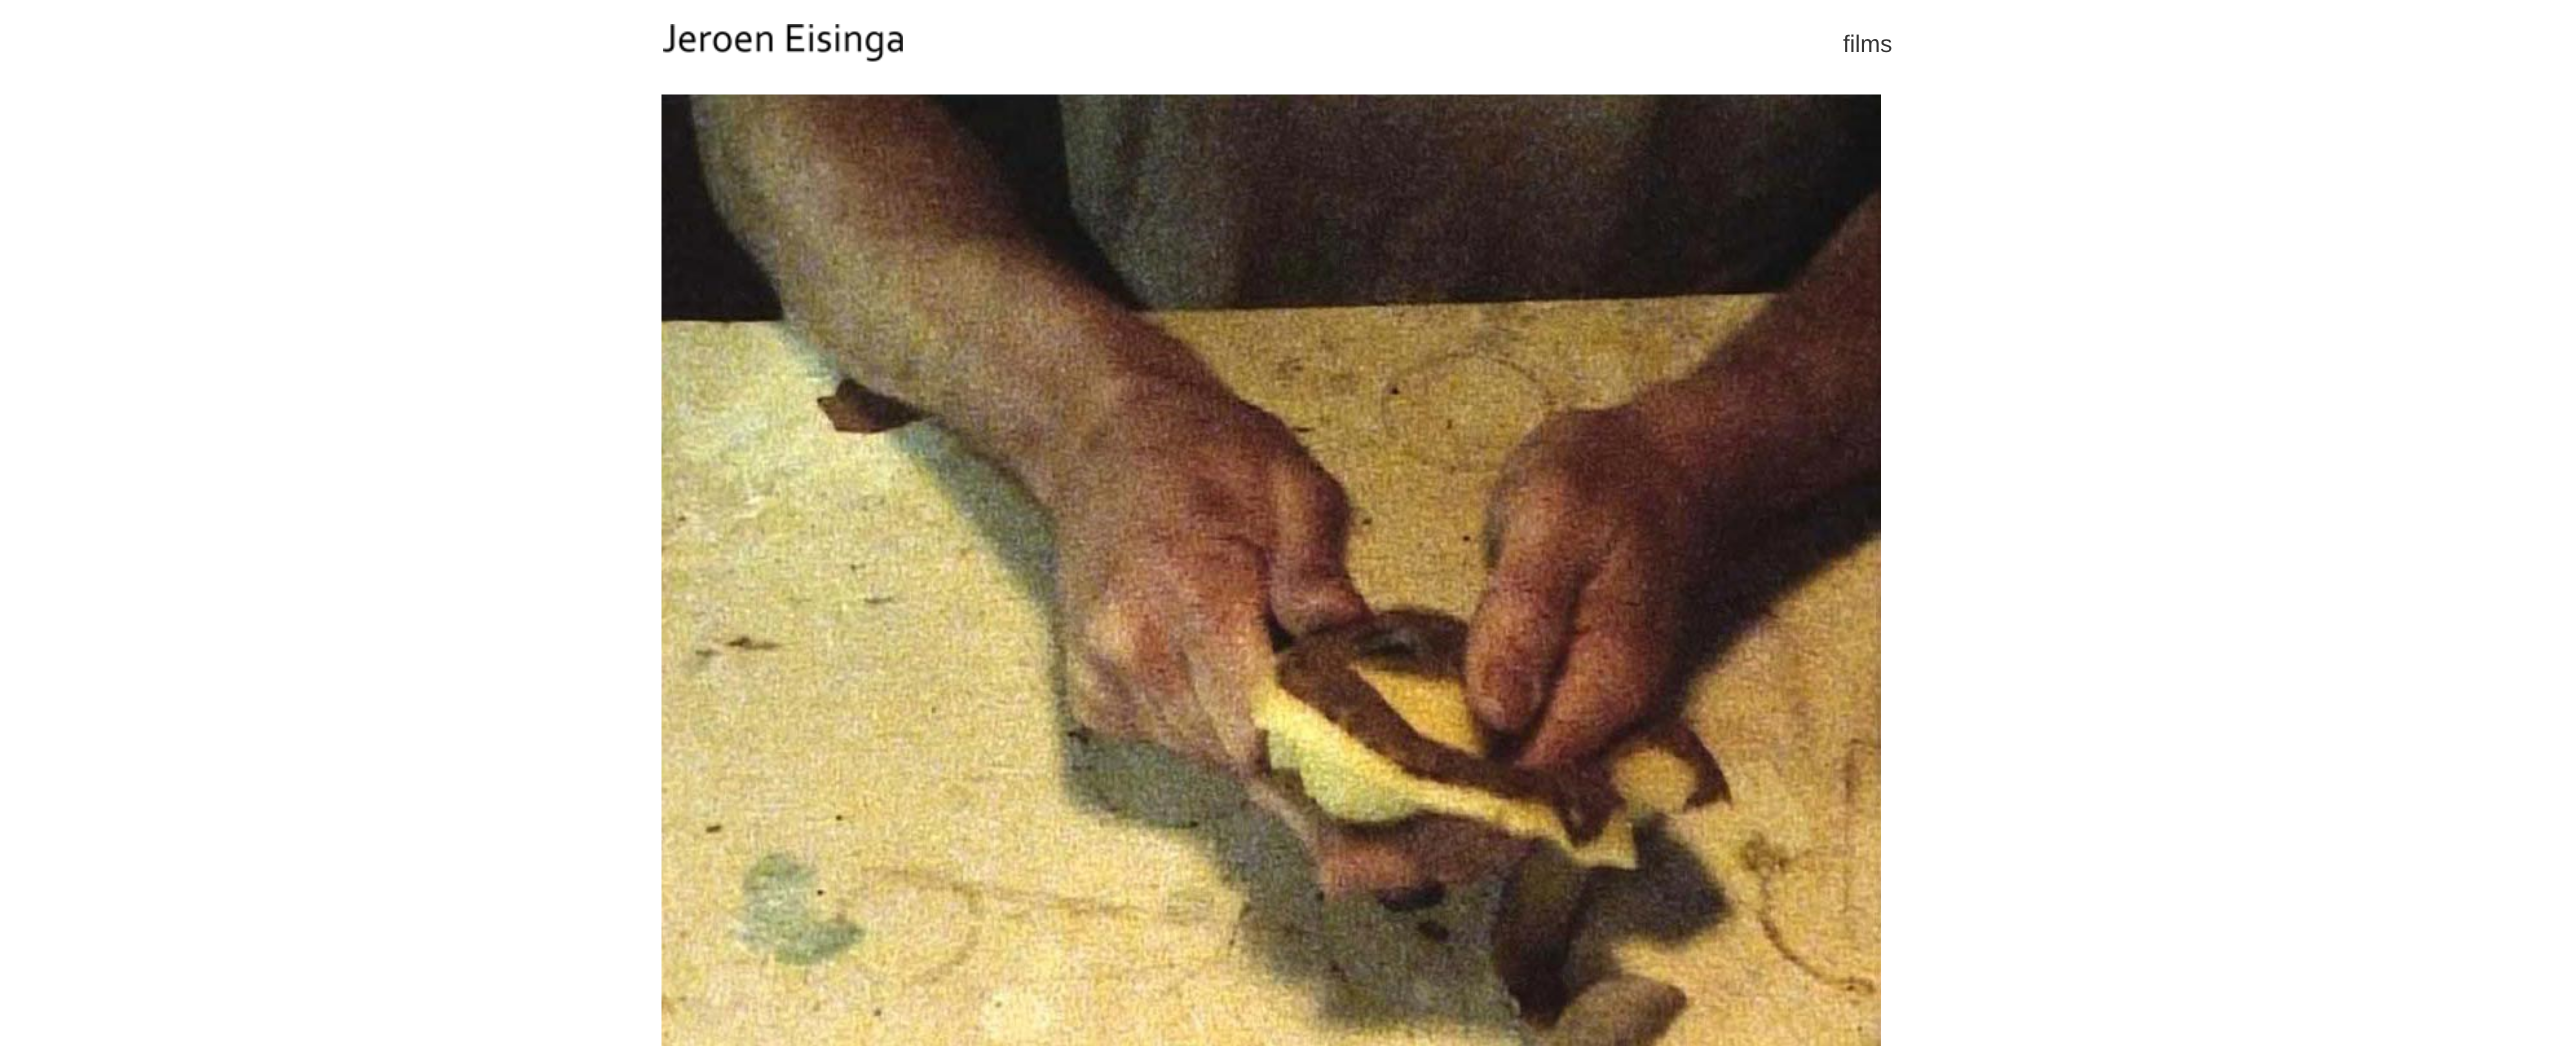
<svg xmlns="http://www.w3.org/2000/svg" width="2566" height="1046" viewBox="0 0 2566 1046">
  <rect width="100%" height="100%" fill="#fff"/>
  <image x="663" y="24" width="240" height="38" href="img/1.png"/>
  <image x="661" y="94" width="1220" height="952" href="img/2.png"/>
  <text x="1843" y="52" font-family="Liberation Sans" font-size="24" fill="#333">films</text>
</svg>
